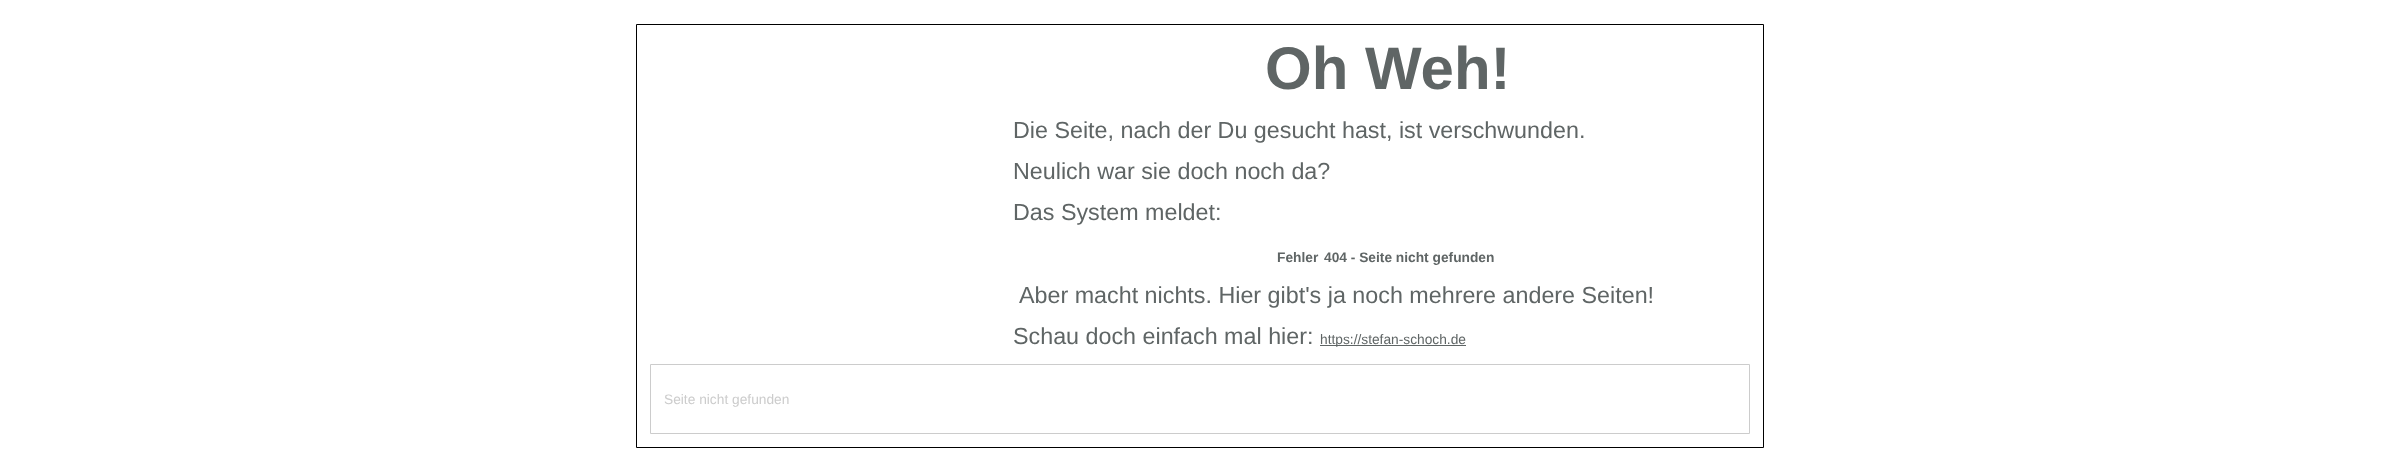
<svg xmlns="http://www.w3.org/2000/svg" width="2397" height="453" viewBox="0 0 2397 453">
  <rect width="100%" height="100%" fill="#fff"/>
  <path d="M636.5 24.5h1127v423H636.5z" fill="none" stroke="#000"/>
  <path d="M1320 345h146v1H1320z" fill="#5f6565"/>
  <path d="M650.5 364.5h1099v69H650.5z" fill="none" stroke="#ccc"/>
  <text x="1265" y="89" font-family="Liberation Sans" font-size="60" font-weight="bold" fill="#5f6565">Oh Weh!</text>
  <g font-family="Liberation Sans" font-size="23.3" fill="#5f6565">
    <text x="1013" y="138">Die Seite, nach der Du gesucht hast, ist verschwunden.</text>
    <text x="1013" y="179">Neulich war sie doch noch da?</text>
    <text x="1013" y="220">Das System meldet:</text>
  </g>
  <g font-family="Liberation Sans" font-size="13.75" font-weight="bold" fill="#5f6565">
    <text x="1277" y="262">Fehler</text>
    <text x="1324" y="262">404 - Seite nicht gefunden</text>
  </g>
  <g font-family="Liberation Sans" font-size="23.3" fill="#5f6565">
    <text x="1019" y="303">Aber macht nichts. Hier gibt's ja noch mehrere andere Seiten!</text>
    <text x="1013" y="344">Schau doch einfach mal hier:</text>
  </g>
  <text x="1320" y="344" font-family="Liberation Sans" font-size="13.75" fill="#5f6565">https://stefan-schoch.de</text>
  <text x="664" y="404" font-family="Liberation Sans" font-size="13.75" fill="#ccc">Seite nicht gefunden</text>
</svg>
